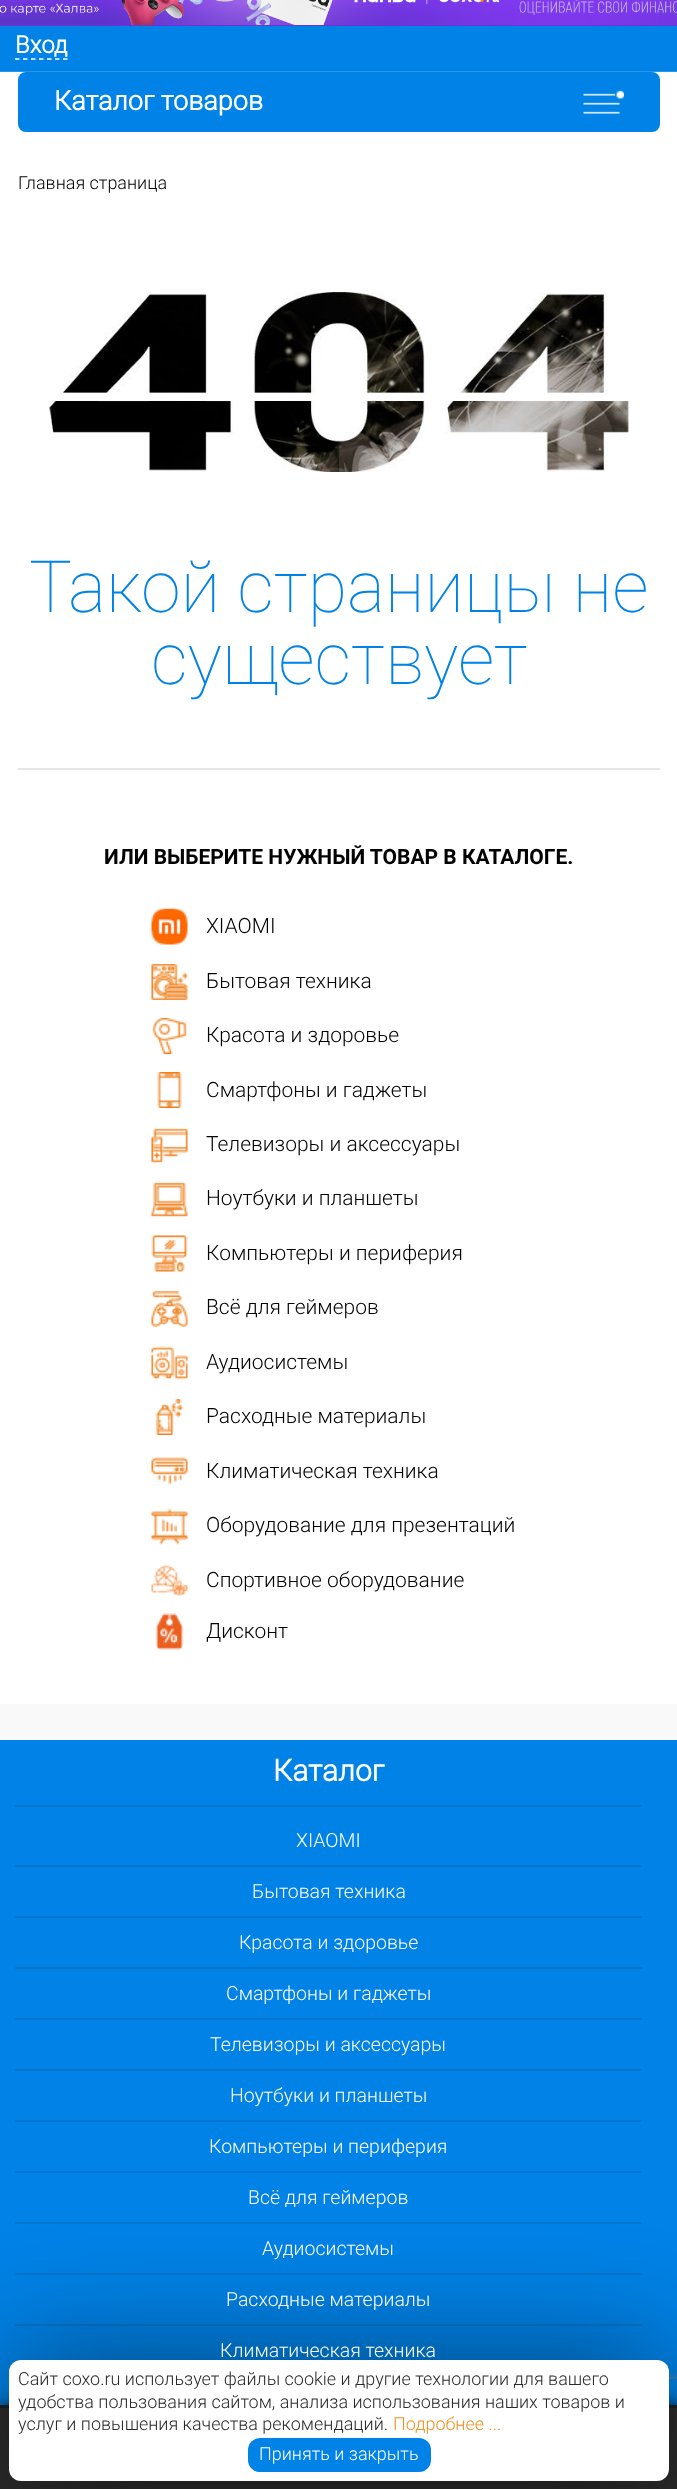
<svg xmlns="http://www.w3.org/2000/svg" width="677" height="2489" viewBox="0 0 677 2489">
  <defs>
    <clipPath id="clip1"><path d="M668 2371h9v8H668z"/></clipPath>
  </defs>
  <rect width="100%" height="100%" fill="#fff"/>
  <path d="M0 25h677v1H0z" fill="#6836d7"/>
  <image x="0" y="0" width="677" height="25" href="img/1.png"/>
  <path d="M0 26h677v45H0z" fill="#0082e6"/>
  <path d="M0 71h677v1H0z" fill="#2695ea"/>
  <path d="M15 59H67.5" fill="none" stroke="#fff" stroke-width="1.5" stroke-dasharray="4.5 3.5"/>
  <rect x="18" y="72" width="642" height="60" rx="8" fill="#0082e6"/>
  <image x="583" y="90" width="41" height="24" href="img/2.png"/>
  <image x="49" y="292" width="580" height="180" href="img/3.png"/>
  <path d="M18 768h642v2H18z" fill="#e5e5e5"/>
  <image x="151" y="908" width="37" height="37" href="img/4.png"/>
  <image x="151" y="964" width="37" height="36" href="img/5.png"/>
  <image x="152" y="1018" width="35" height="36" href="img/6.png"/>
  <image x="157" y="1072" width="25" height="36" href="img/7.png"/>
  <image x="151" y="1128" width="37" height="35" href="img/8.png"/>
  <image x="151" y="1182" width="37" height="35" href="img/9.png"/>
  <image x="151" y="1235" width="37" height="37" href="img/10.png"/>
  <image x="151" y="1291" width="37" height="36" href="img/11.png"/>
  <image x="151" y="1346" width="37" height="34" href="img/12.png"/>
  <image x="155" y="1399" width="29" height="36" href="img/13.png"/>
  <image x="151" y="1457" width="37" height="28" href="img/14.png"/>
  <image x="151" y="1508" width="37" height="37" href="img/15.png"/>
  <image x="151" y="1565" width="37" height="31" href="img/16.png"/>
  <image x="155" y="1613" width="29" height="37" href="img/17.png"/>
  <path d="M0 1704h677v36H0z" fill="#f9f9f9"/>
  <path d="M0 1740h677v665H0z" fill="#0082e6"/>
  <path d="M15 1805h627v2H15z" fill="#0075cf"/>
  <path d="M15 1865h627v2H15z" fill="#0075cf"/>
  <path d="M15 1916h627v2H15z" fill="#0075cf"/>
  <path d="M15 1967h627v2H15z" fill="#0075cf"/>
  <path d="M15 2018h627v2H15z" fill="#0075cf"/>
  <path d="M15 2069h627v2H15z" fill="#0075cf"/>
  <path d="M15 2120h627v2H15z" fill="#0075cf"/>
  <path d="M15 2171h627v2H15z" fill="#0075cf"/>
  <path d="M15 2222h627v2H15z" fill="#0075cf"/>
  <path d="M15 2273h627v2H15z" fill="#0075cf"/>
  <path d="M15 2324h627v2H15z" fill="#0075cf"/>
  <path d="M2 2406h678v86H2z" fill="#000" filter="blur(9px)"/>
  <g clip-path="url(#clip1)">
    <rect x="573" y="2379" width="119" height="90" rx="3" fill="#808080" filter="blur(4px)"/>
  </g>
  <path d="M0 2408h677v81H0z" fill="#2b2b2b"/>
  <path d="M0 2405h677v3H0z" fill="#202020"/>
  <rect x="9" y="2360" width="660" height="121" rx="12" fill="#00000080" filter="blur(60px)"/>
  <rect x="9" y="2360" width="660" height="121" rx="12" fill="#fff"/>
  <rect x="248" y="2438" width="183" height="34" rx="12" fill="#0082e6"/>
  <text x="15" y="53" font-family="'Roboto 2'" font-size="24" font-weight="bold" fill="#fff">Вход</text>
  <text x="54" y="110" font-family="'Roboto 2'" font-size="27" font-weight="bold" fill="#fff">Каталог товаров</text>
  <text x="18" y="189" font-family="Roboto" font-size="18" font-weight="300" fill="#000">Главная страница</text>
  <g font-family="Roboto" font-size="72" font-weight="100" fill="#0082e6">
    <text x="29" y="612">Такой страницы не</text>
    <text x="151" y="684">существует</text>
  </g>
  <text x="104" y="864" font-family="Roboto" font-size="21" font-weight="bold" fill="#000">ИЛИ ВЫБЕРИТЕ НУЖНЫЙ ТОВАР В КАТАЛОГЕ.</text>
  <g font-family="Roboto" font-size="21" font-weight="300" fill="#000">
    <text x="206" y="933">XIAOMI</text>
    <text x="206" y="988">Бытовая техника</text>
    <text x="206" y="1042">Красота и здоровье</text>
    <text x="206" y="1097">Смартфоны и гаджеты</text>
    <text x="206" y="1151">Телевизоры и аксессуары</text>
    <text x="206" y="1205">Ноутбуки и планшеты</text>
    <text x="206" y="1260">Компьютеры и периферия</text>
    <text x="206" y="1314">Всё для геймеров</text>
    <text x="206" y="1369">Аудиосистемы</text>
    <text x="206" y="1423">Расходные материалы</text>
    <text x="206" y="1478">Климатическая техника</text>
    <text x="206" y="1532">Оборудование для презентаций</text>
    <text x="206" y="1587">Cпортивное оборудование</text>
    <text x="206" y="1638">Дисконт</text>
  </g>
  <text x="273" y="1781" font-family="'Roboto 2'" font-size="30" font-weight="bold" fill="#fff">Каталог</text>
  <g font-family="Roboto" font-size="19.5" font-weight="300" fill="#fff">
    <text x="296" y="1847">XIAOMI</text>
    <text x="252" y="1898">Бытовая техника</text>
    <text x="239" y="1949">Красота и здоровье</text>
    <text x="226" y="2000">Смартфоны и гаджеты</text>
    <text x="210" y="2051">Телевизоры и аксессуары</text>
    <text x="230" y="2102">Ноутбуки и планшеты</text>
    <text x="209" y="2153">Компьютеры и периферия</text>
    <text x="248" y="2204">Всё для геймеров</text>
    <text x="262" y="2255">Аудиосистемы</text>
    <text x="226" y="2306">Расходные материалы</text>
    <text x="220" y="2357">Климатическая техника</text>
  </g>
  <g font-family="Roboto" font-size="18" font-weight="300" fill="#2a2a2a">
    <text x="18" y="2385">Cайт coxo.ru использует файлы cookie и другие технологии для вашего</text>
    <text x="18" y="2408">удобства пользования сайтом, анализа использования наших товаров и</text>
    <text x="18" y="2430">услуг и повышения качества рекомендаций.</text>
  </g>
  <text x="393" y="2430" font-family="Roboto" font-size="18" font-weight="300" fill="#ee9121">Подробнее ...</text>
  <text x="259" y="2460" font-family="Roboto" font-size="18" font-weight="300" fill="#fff">Принять и закрыть</text>
</svg>
